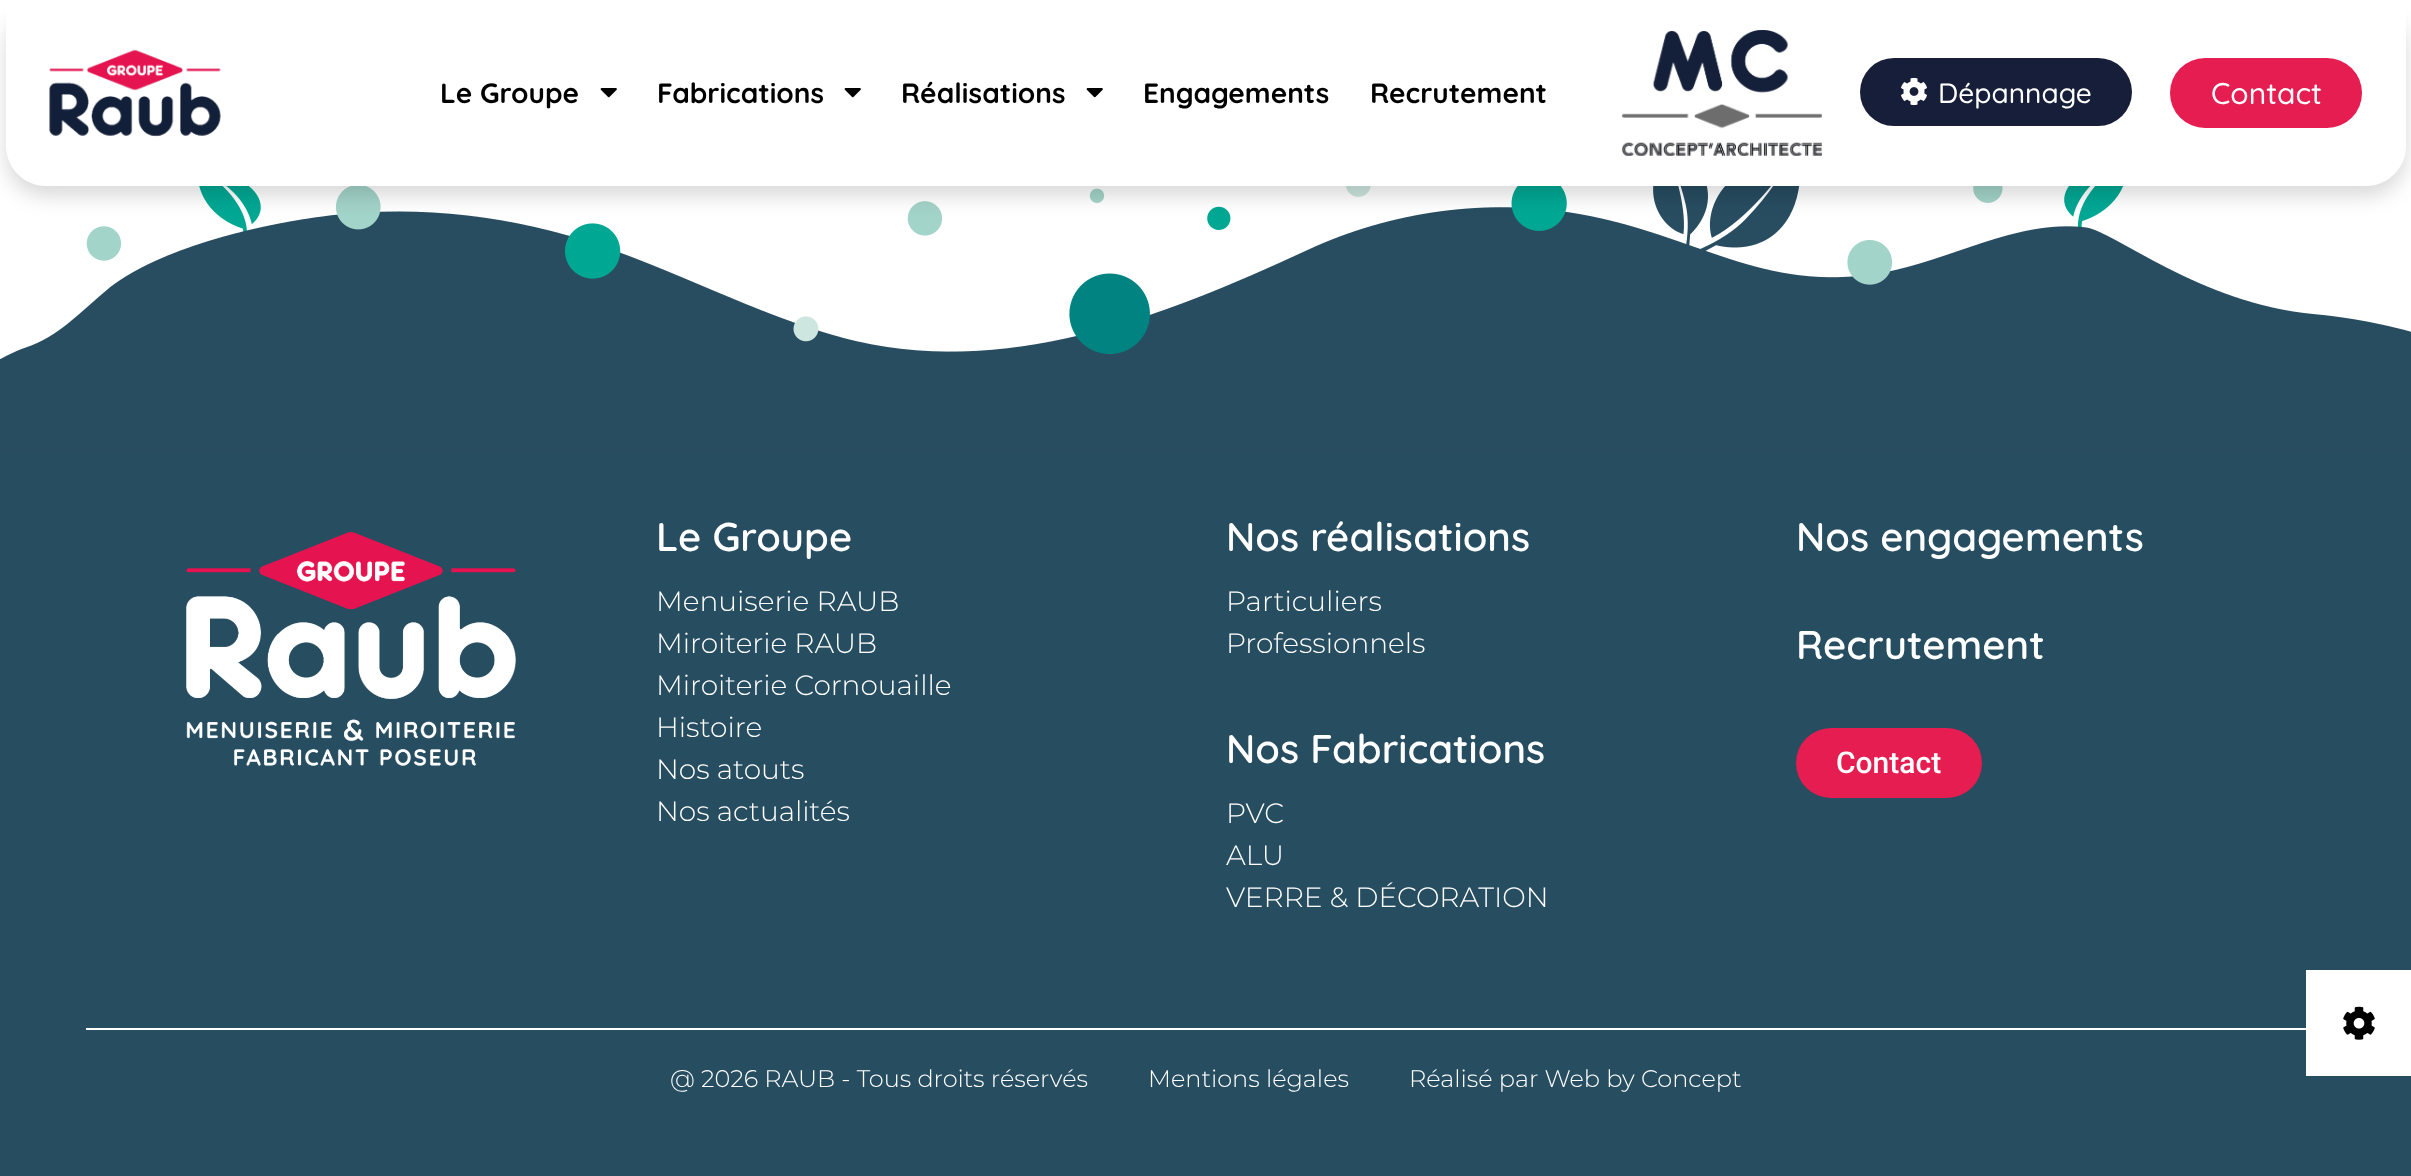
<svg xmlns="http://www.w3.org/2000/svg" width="2411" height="1176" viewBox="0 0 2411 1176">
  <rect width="100%" height="100%" fill="#fff"/>
  <image x="0" y="186" width="2411" height="266" href="img/5.png"/>
  <rect x="6" y="10" width="2400" height="186" rx="40" fill="#00000026" filter="blur(10px)"/>
  <path d="M6 0H2406V146C2406 168 2388 186 2366 186H46C24 186 6 168 6 146Z" fill="#fff"/>
  <image x="49" y="49" width="172" height="88" href="img/1.png"/>
  <image x="600" y="88" width="17" height="10" href="img/2.png"/>
  <image x="844" y="88" width="17" height="10" href="img/2.png"/>
  <image x="1086" y="88" width="17" height="10" href="img/2.png"/>
  <image x="1621" y="30" width="201" height="126" href="img/3.png"/>
  <rect x="1860" y="58" width="272" height="68" rx="34" fill="#161e39"/>
  <image x="1901" y="77" width="26" height="29" href="img/4.png"/>
  <rect x="2170" y="58" width="192" height="70" rx="35" fill="#e61d50"/>
  <path d="M0 452h2411v724H0z" fill="#274d61"/>
  <image x="186" y="532" width="330" height="234" href="img/6.png"/>
  <rect x="1796" y="728" width="186" height="70" rx="35" fill="#e61d50"/>
  <path d="M86 1028h2220v2H86z" fill="#fff"/>
  <path d="M2306 970h105v106H2306z" fill="#fff"/>
  <image x="2343" y="1006" width="32" height="34" href="img/7.png"/>
  <g font-family="Quicksand" font-size="28" font-weight="bold" fill="#000">
    <text x="440" y="103">Le Groupe</text>
    <text x="657" y="103">Fabrications</text>
    <text x="901" y="103">Réalisations</text>
    <text x="1143" y="103">Engagements</text>
    <text x="1370" y="103">Recrutement</text>
  </g>
  <text x="1938" y="103" font-family="Quicksand" font-size="28" font-weight="500" fill="#fff">Dépannage</text>
  <text x="2211" y="104" font-family="Quicksand" font-size="30" font-weight="500" fill="#fff">Contact</text>
  <text x="656" y="551" font-family="Quicksand" font-size="40" font-weight="600" fill="#fff">Le Groupe</text>
  <g font-family="Montserrat" font-size="28" font-weight="300" fill="#fff">
    <text x="656" y="611">Menuiserie RAUB</text>
    <text x="656" y="653">Miroiterie RAUB</text>
    <text x="656" y="695">Miroiterie Cornouaille</text>
    <text x="656" y="737">Histoire</text>
    <text x="656" y="779">Nos atouts</text>
    <text x="656" y="821">Nos actualités</text>
  </g>
  <text x="1226" y="551" font-family="Quicksand" font-size="40" font-weight="600" fill="#fff">Nos réalisations</text>
  <g font-family="Montserrat" font-size="28" font-weight="300" fill="#fff">
    <text x="1226" y="611">Particuliers</text>
    <text x="1226" y="653">Professionnels</text>
  </g>
  <text x="1226" y="763" font-family="Quicksand" font-size="40" font-weight="600" fill="#fff">Nos Fabrications</text>
  <g font-family="Montserrat" font-size="28" font-weight="300" fill="#fff">
    <text x="1226" y="823">PVC</text>
    <text x="1226" y="865">ALU</text>
    <text x="1226" y="907">VERRE &amp; DÉCORATION</text>
  </g>
  <g font-family="Quicksand" font-size="40" font-weight="600" fill="#fff">
    <text x="1796" y="551">Nos engagements</text>
    <text x="1796" y="659">Recrutement</text>
  </g>
  <text x="1836" y="773" font-family="Roboto" font-size="30" font-weight="500" fill="#fff">Contact</text>
  <g font-family="Montserrat" font-size="24" font-weight="300" fill="#fff">
    <text x="670" y="1087">@ 2026 RAUB - Tous droits réservés</text>
    <text x="1148" y="1087">Mentions légales</text>
    <text x="1409" y="1087">Réalisé par Web by Concept</text>
  </g>
</svg>
